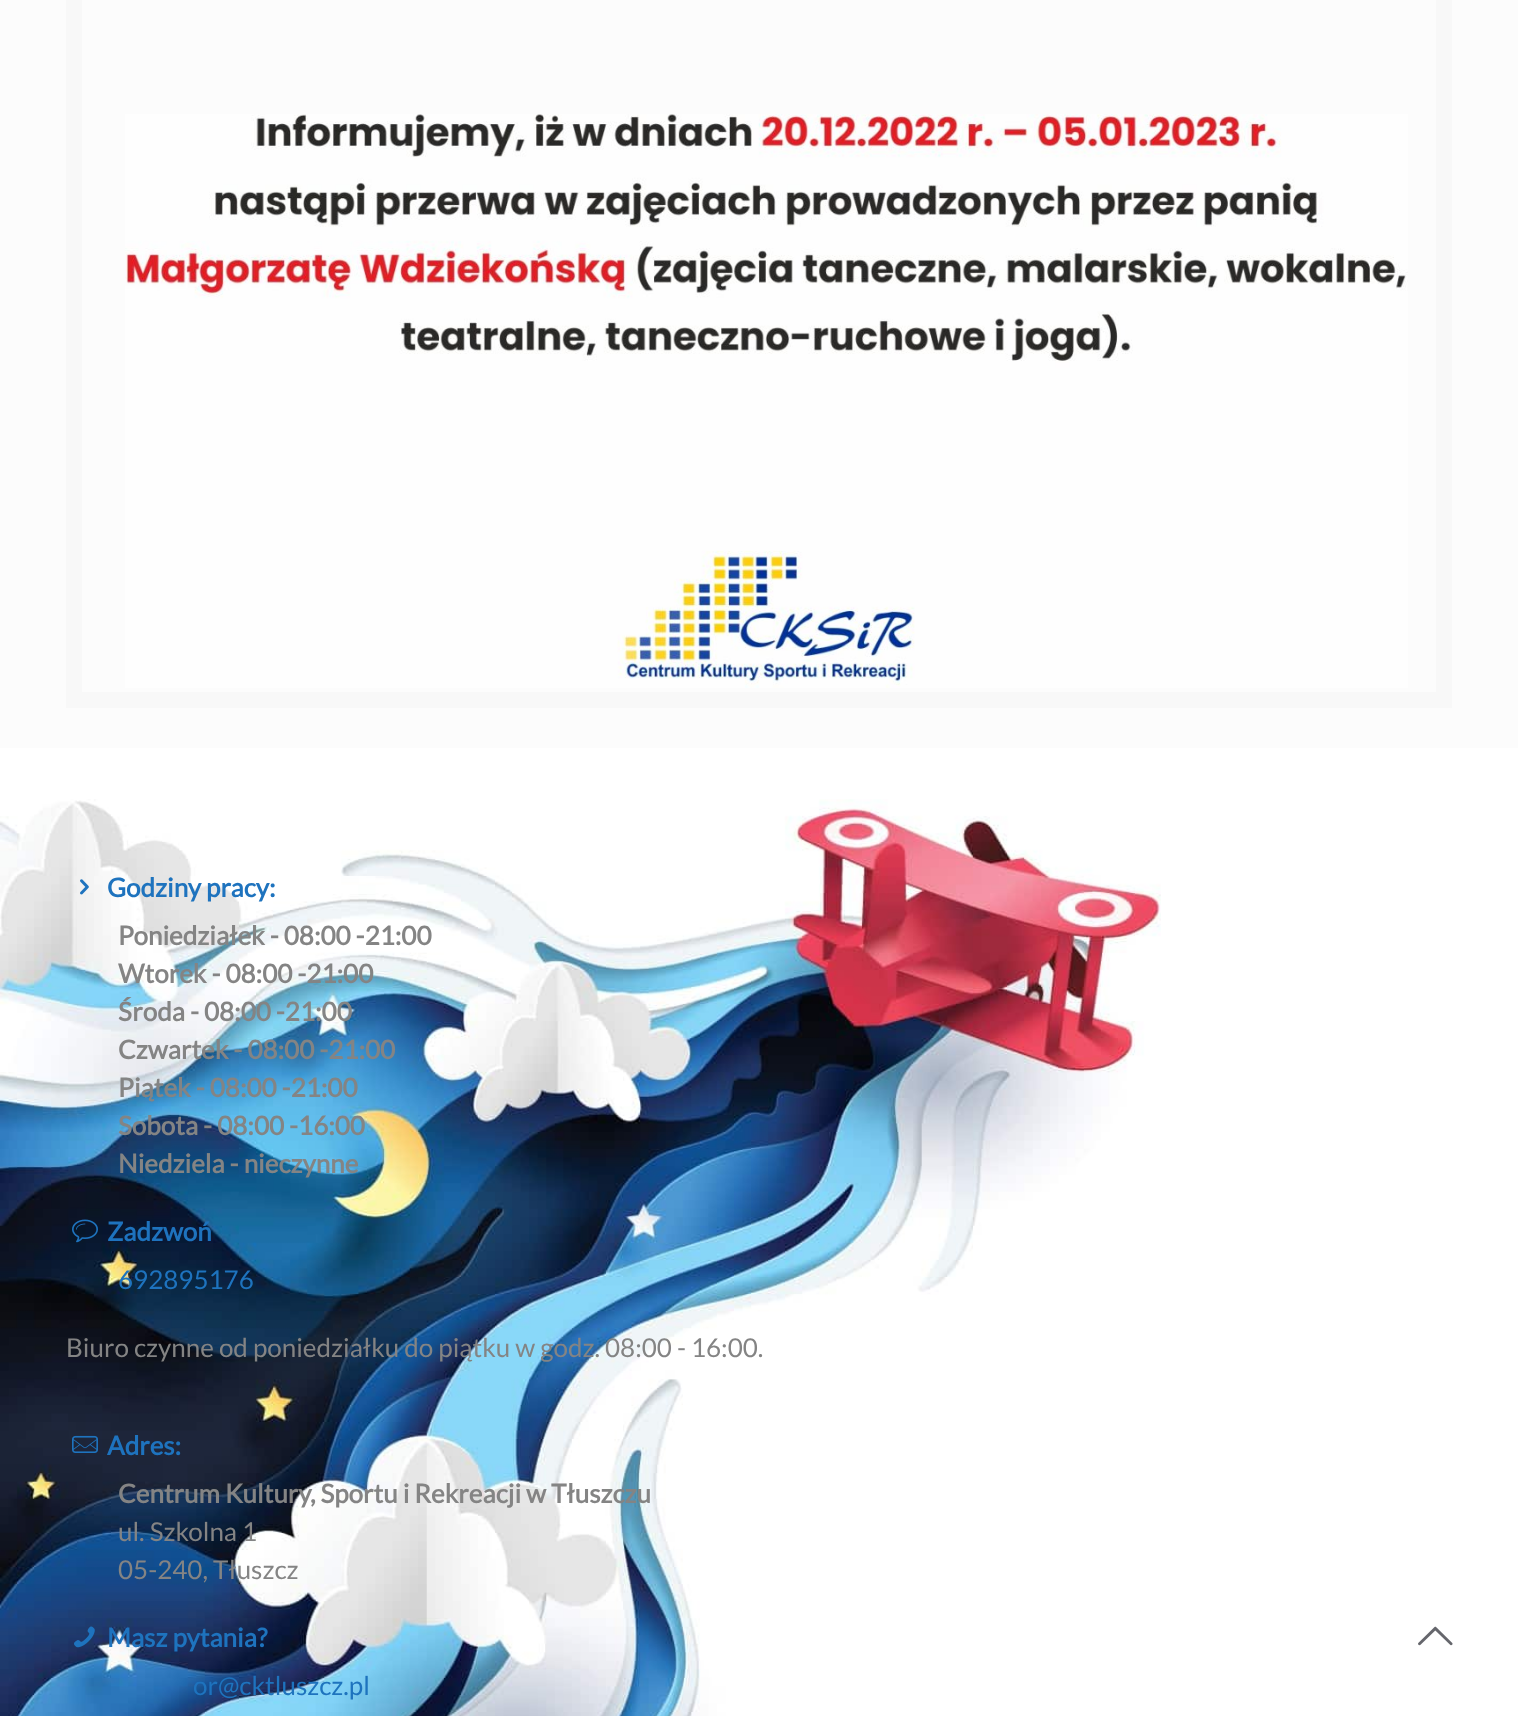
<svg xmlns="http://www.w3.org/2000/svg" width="1518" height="1716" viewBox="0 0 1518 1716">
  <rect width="100%" height="100%" fill="#fcfcfc"/>
  <path d="M74 -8h1370v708H74z" fill="none" stroke="#f8f8f8" stroke-width="16"/>
  <image x="125" y="114" width="1283" height="574" href="img/1.png"/>
  <path d="M0 748h1518v968H0z" fill="#fff"/>
  <image x="0" y="799" width="1161" height="917" href="img/2.png"/>
  <image x="80" y="879" width="9" height="16" href="img/3.png"/>
  <image x="72" y="1219" width="26" height="24" href="img/4.png"/>
  <image x="72" y="1435" width="26" height="18" href="img/5.png"/>
  <image x="74" y="1626" width="21" height="22" href="img/6.png"/>
  <image x="1418" y="1626" width="35" height="20" href="img/7.png"/>
  <text x="107" y="897" font-family="Lato" font-size="26" font-weight="bold" fill="#1e73be">Godziny pracy:</text>
  <g font-family="Lato" font-size="26" font-weight="bold" fill="#848484">
    <text x="118" y="945">Poniedziałek - 08:00 -21:00</text>
    <text x="118" y="983">Wtorek - 08:00 -21:00</text>
    <text x="118" y="1021">Środa - 08:00 -21:00</text>
    <text x="118" y="1059">Czwartek - 08:00 -21:00</text>
    <text x="118" y="1097">Piątek - 08:00 -21:00</text>
    <text x="118" y="1135">Sobota - 08:00 -16:00</text>
    <text x="118" y="1173">Niedziela - nieczynne</text>
  </g>
  <text x="107" y="1241" font-family="Lato" font-size="26" font-weight="bold" fill="#1e73be">Zadzwoń</text>
  <text x="118" y="1289" font-family="Lato" font-size="26" fill="#1e73be">692895176</text>
  <text x="66" y="1357" font-family="Lato" font-size="26" fill="#848484">Biuro czynne od poniedziałku do piątku w godz. 08:00 - 16:00.</text>
  <text x="107" y="1455" font-family="Lato" font-size="26" font-weight="bold" fill="#1e73be">Adres:</text>
  <text x="118" y="1503" font-family="Lato" font-size="26" font-weight="bold" fill="#848484">Centrum Kultury, Sportu i Rekreacji w Tłuszczu</text>
  <g font-family="Lato" font-size="26" fill="#848484">
    <text x="118" y="1541">ul. Szkolna 1</text>
    <text x="118" y="1579">05-240, Tłuszcz</text>
  </g>
  <text x="107" y="1647" font-family="Lato" font-size="26" font-weight="bold" fill="#1e73be">Masz pytania?</text>
  <text x="193" y="1695" font-family="Lato" font-size="26" fill="#1e73be">or@cktluszcz.pl</text>
</svg>
